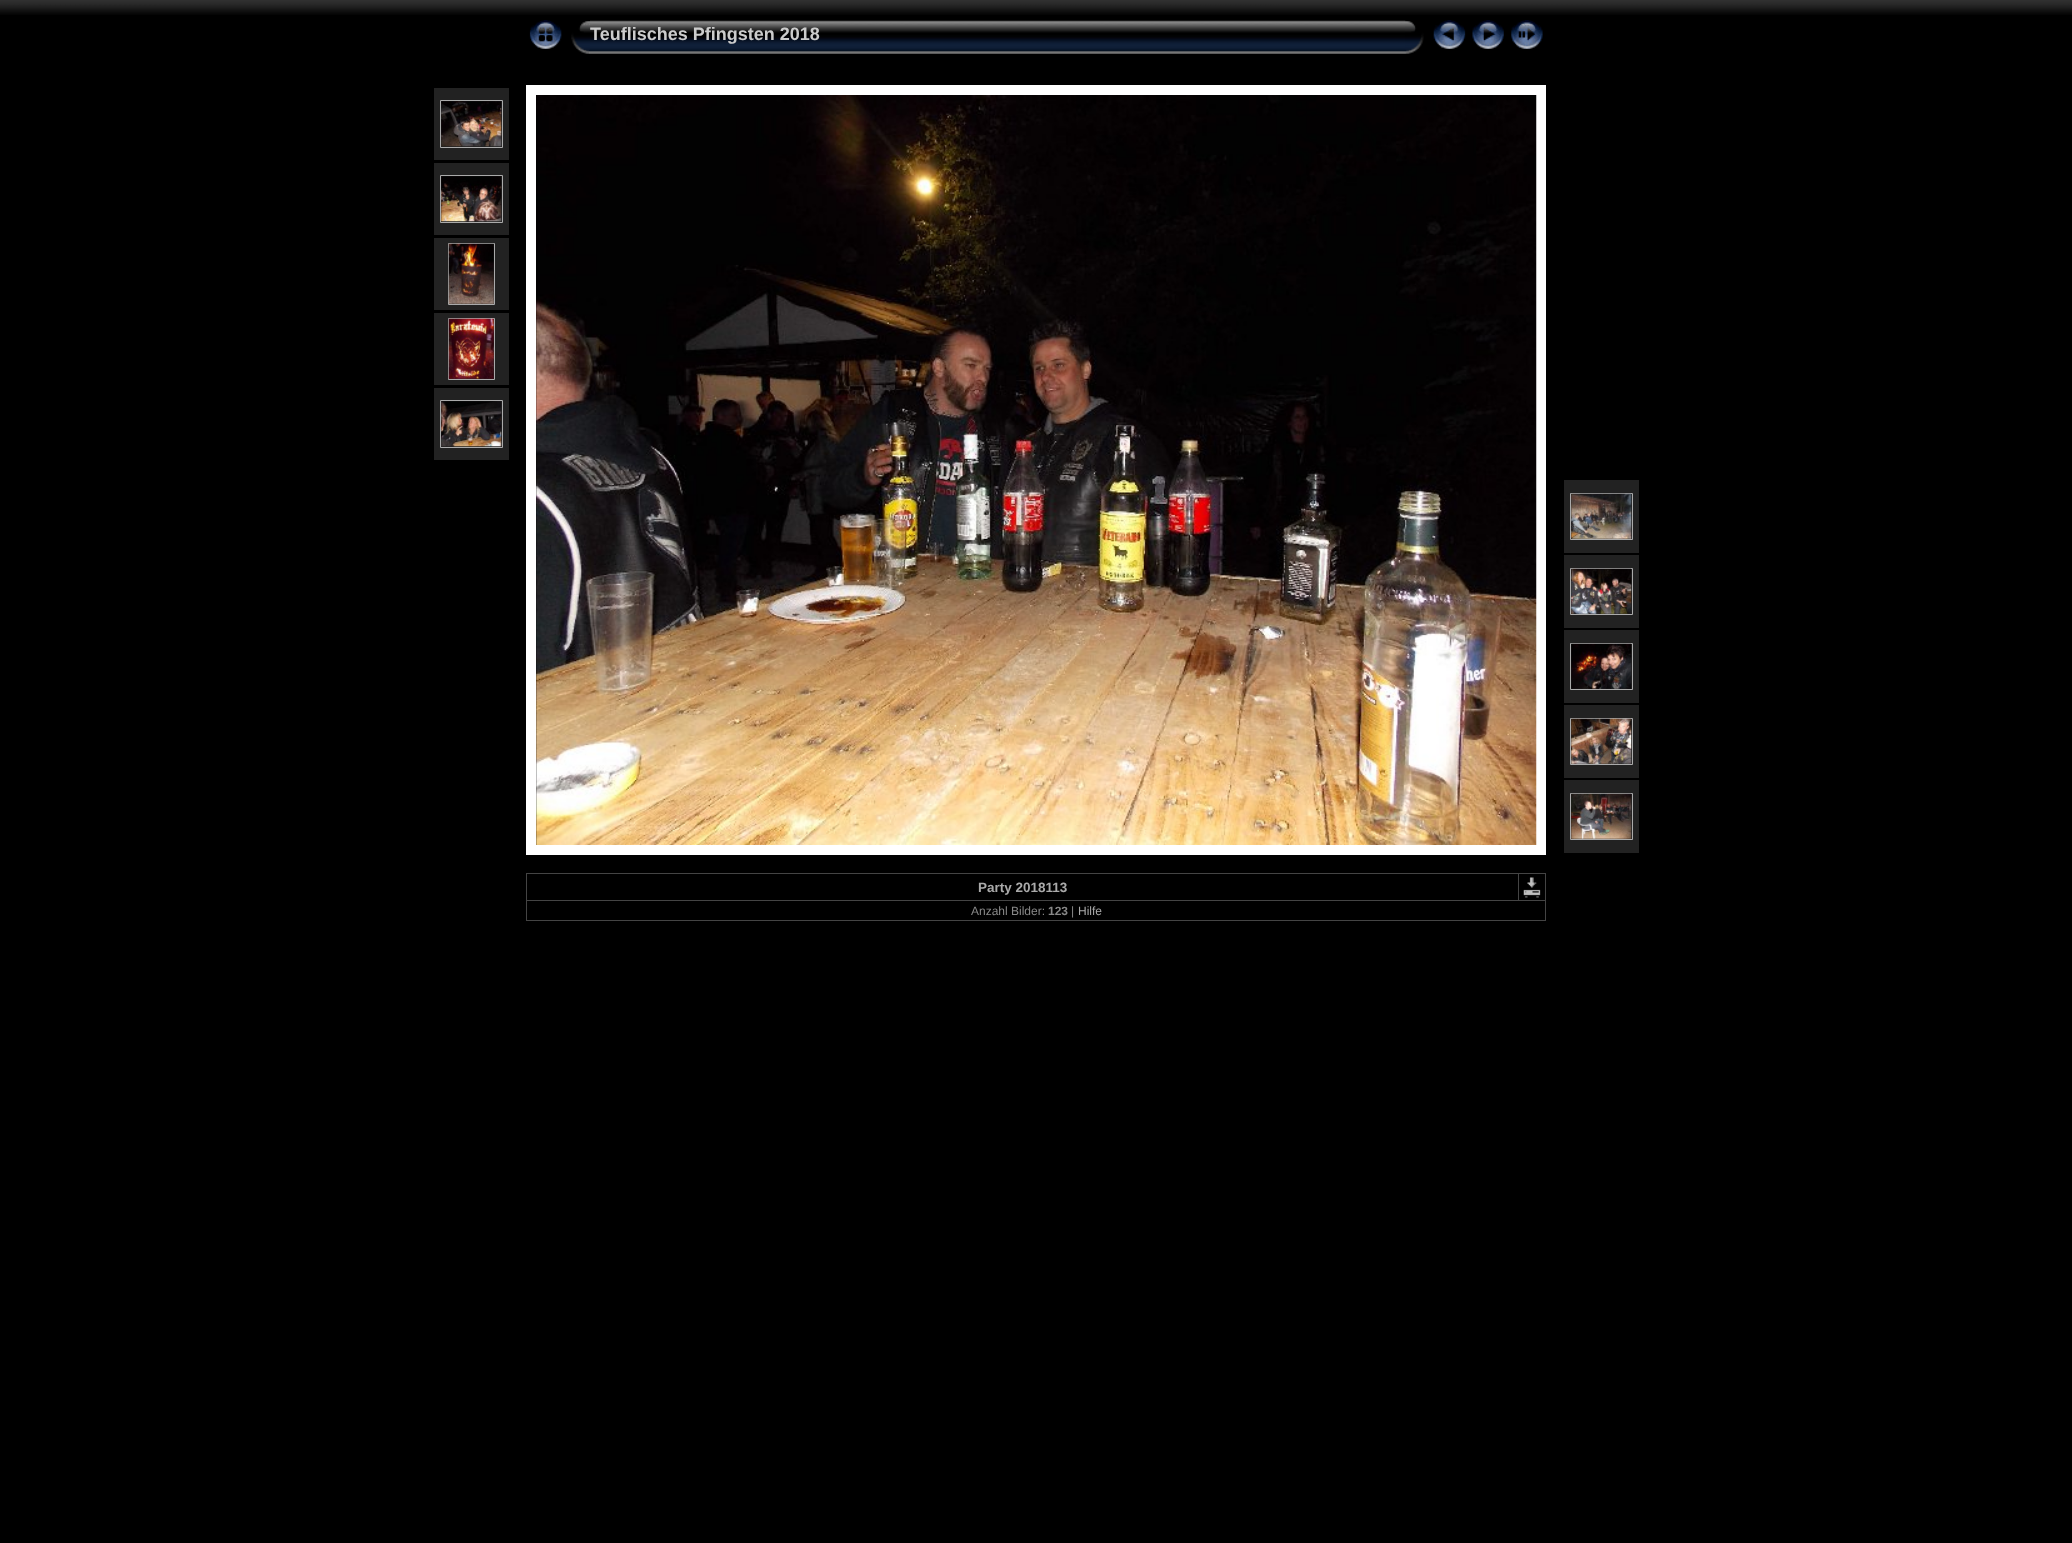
<svg xmlns="http://www.w3.org/2000/svg" width="2072" height="1543" viewBox="0 0 2072 1543">
  <rect width="100%" height="100%" fill="#000"/>
  <image x="0" y="0" width="2072" height="15" href="img/1.png"/>
  <image x="529" y="20" width="33" height="29" href="img/2.png"/>
  <image x="571" y="21" width="19" height="33" href="img/3.png"/>
  <image x="590" y="20" width="815" height="34" href="img/4.png"/>
  <image x="1405" y="20" width="19" height="34" href="img/5.png"/>
  <image x="1433" y="20" width="33" height="29" href="img/6.png"/>
  <image x="1472" y="20" width="32" height="29" href="img/7.png"/>
  <image x="1511" y="20" width="32" height="29" href="img/8.png"/>
  <path d="M434 88h75v72H434z" fill="#222"/>
  <path d="M440.5 100.5h62v47H440.5z" fill="none" stroke="#aaa"/>
  <image x="441" y="101" width="61" height="46" href="img/9.png"/>
  <path d="M434 163h75v72H434z" fill="#222"/>
  <path d="M440.5 175.5h62v47H440.5z" fill="none" stroke="#aaa"/>
  <image x="441" y="176" width="61" height="46" href="img/10.png"/>
  <path d="M434 238h75v72H434z" fill="#222"/>
  <path d="M448.5 243.5h46v61H448.5z" fill="none" stroke="#aaa"/>
  <image x="448" y="243" width="46" height="61" href="img/11.png"/>
  <path d="M434 313h75v72H434z" fill="#222"/>
  <path d="M448.5 318.5h46v61H448.5z" fill="none" stroke="#aaa"/>
  <image x="448" y="318" width="46" height="61" href="img/12.png"/>
  <path d="M434 388h75v72H434z" fill="#222"/>
  <path d="M440.5 400.5h62v47H440.5z" fill="none" stroke="#aaa"/>
  <image x="441" y="401" width="61" height="46" href="img/13.png"/>
  <path d="M531 90h1010v760H531z" fill="none" stroke="#fff" stroke-width="10"/>
  <image x="536" y="95" width="1001" height="750" href="img/14.png"/>
  <path d="M1564 480h75v73H1564z" fill="#222"/>
  <path d="M1570.5 493.5h62v46H1570.5z" fill="none" stroke="#aaa"/>
  <image x="1571" y="493" width="61" height="46" href="img/15.png"/>
  <path d="M1564 555h75v73H1564z" fill="#222"/>
  <path d="M1570.5 568.5h62v46H1570.5z" fill="none" stroke="#aaa"/>
  <image x="1571" y="568" width="61" height="46" href="img/16.png"/>
  <path d="M1564 630h75v73H1564z" fill="#222"/>
  <path d="M1570.5 643.5h62v46H1570.5z" fill="none" stroke="#aaa"/>
  <image x="1571" y="643" width="61" height="46" href="img/17.png"/>
  <path d="M1564 705h75v73H1564z" fill="#222"/>
  <path d="M1570.5 718.5h62v46H1570.5z" fill="none" stroke="#aaa"/>
  <image x="1571" y="718" width="61" height="46" href="img/18.png"/>
  <path d="M1564 780h75v73H1564z" fill="#222"/>
  <path d="M1570.5 793.5h62v46H1570.5z" fill="none" stroke="#aaa"/>
  <image x="1571" y="793" width="61" height="46" href="img/19.png"/>
  <path d="M526 873h1020v1H526z" fill="#444"/>
  <path d="M1545 873h1v48H1545z" fill="#444"/>
  <path d="M526 920h1020v1H526z" fill="#444"/>
  <path d="M526 873h1v48H526z" fill="#444"/>
  <path d="M526 900h1020v1H526z" fill="#444"/>
  <path d="M1518 873h1v28H1518z" fill="#444"/>
  <image x="1523" y="877" width="18" height="21" href="img/20.png"/>
  <text x="590" y="40" font-family="Liberation Sans" font-size="18" font-weight="bold" fill="#ccc">Teuflisches Pfingsten 2018</text>
  <text x="978" y="892" font-family="Liberation Sans" font-size="13.5" font-weight="bold" fill="#aaa">Party 2018113</text>
  <text x="971" y="915" font-family="Liberation Sans" font-size="12" fill="#888">Anzahl Bilder:</text>
  <text x="1048" y="915" font-family="Liberation Sans" font-size="12" font-weight="bold" fill="#888">123</text>
  <text x="1071" y="915" font-family="Liberation Sans" font-size="12" fill="#888">|</text>
  <text x="1078" y="915" font-family="Liberation Sans" font-size="12" fill="#aaa">Hilfe</text>
</svg>
